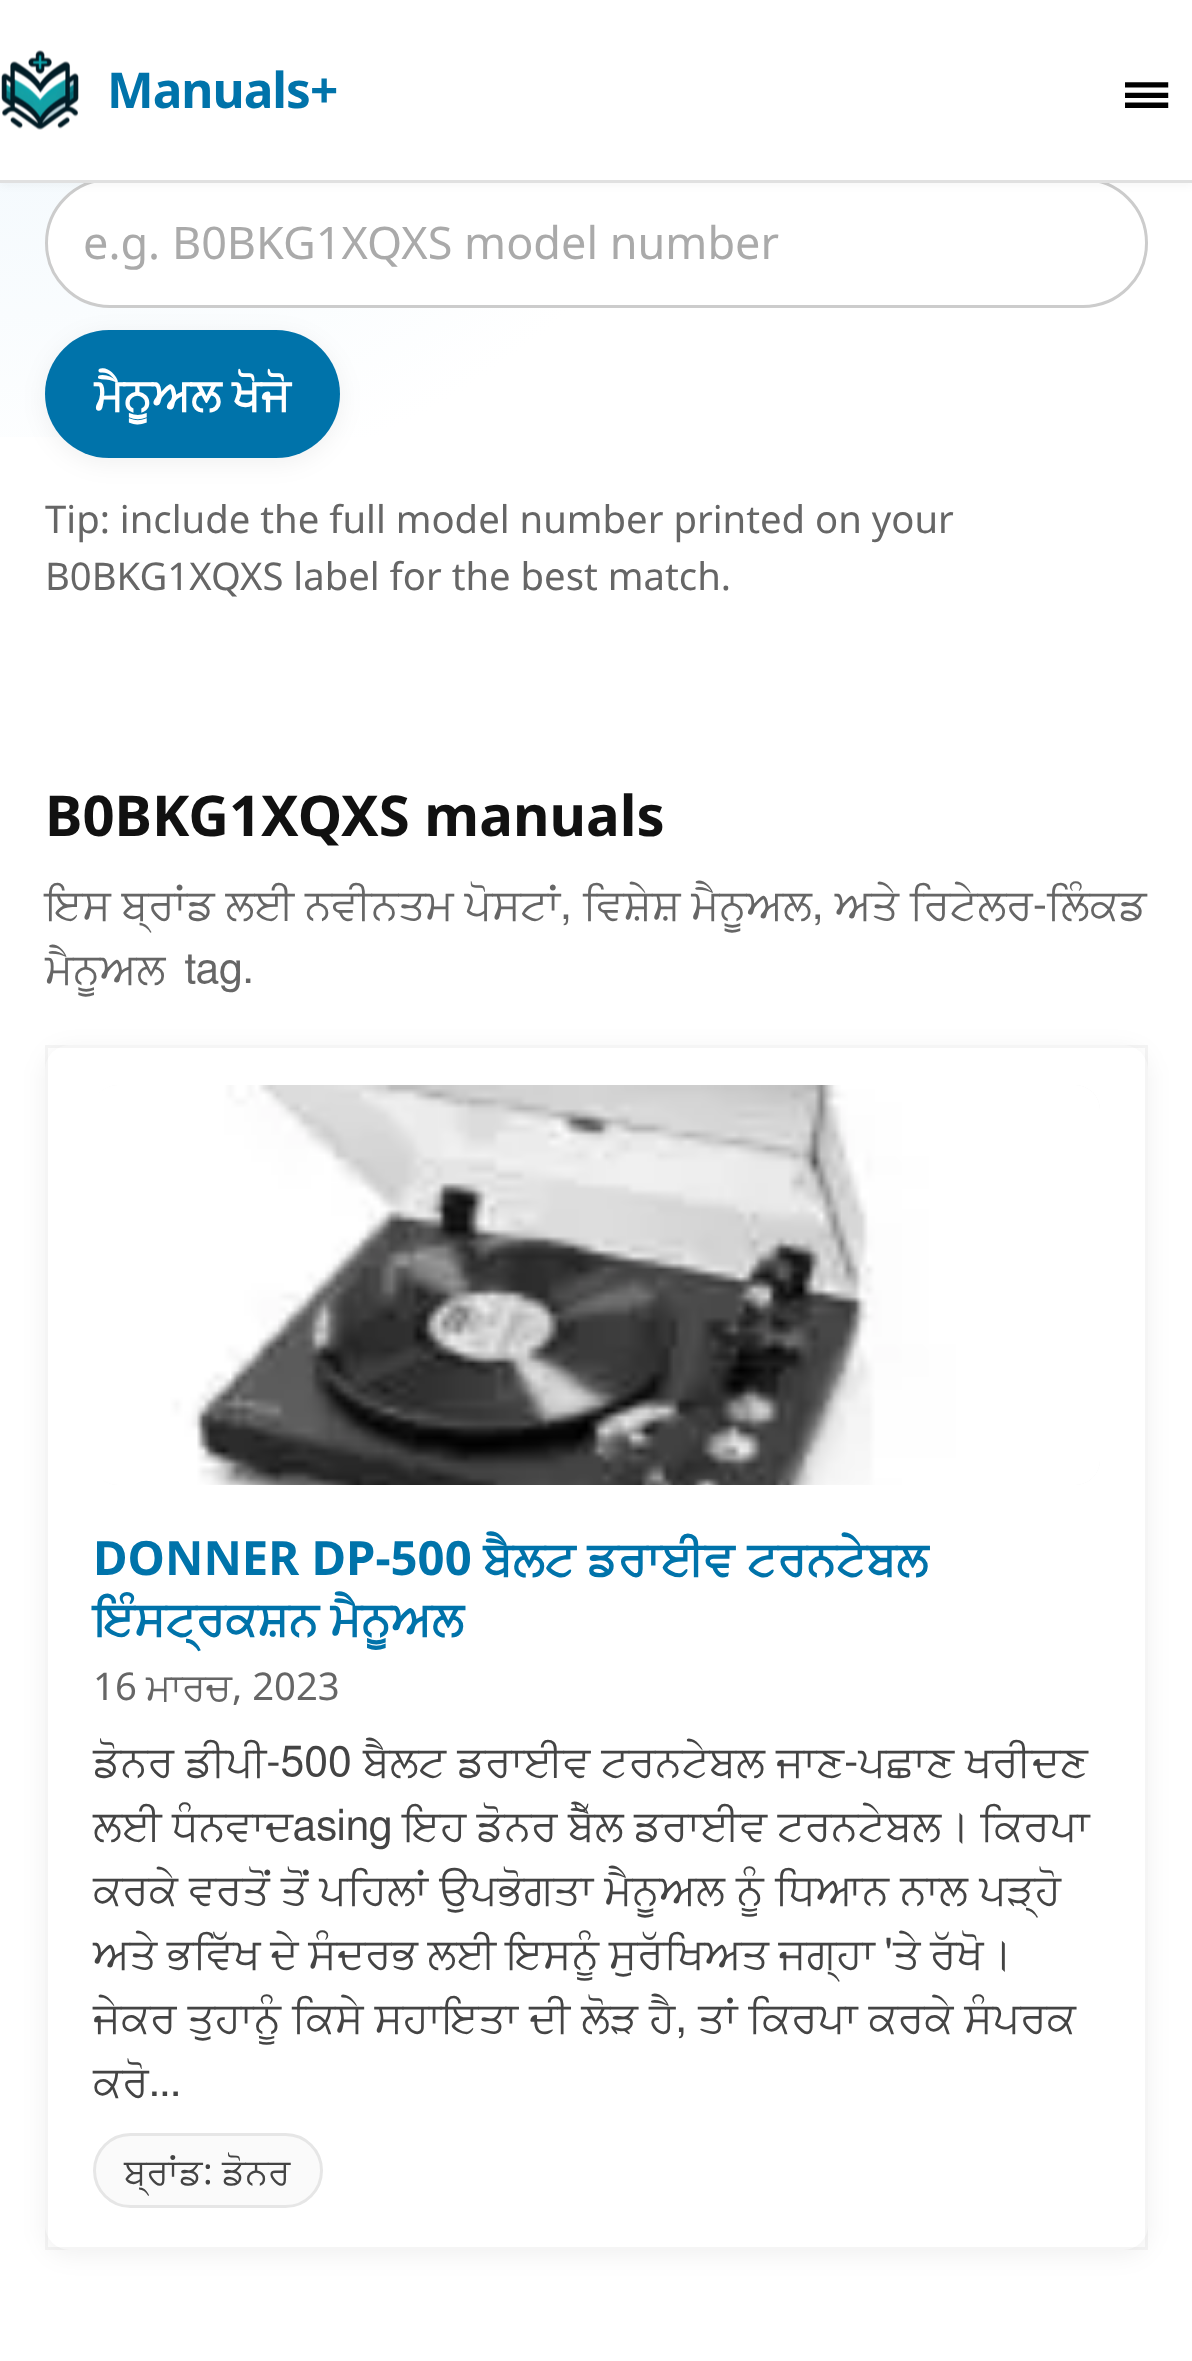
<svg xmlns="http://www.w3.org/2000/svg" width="1192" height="2361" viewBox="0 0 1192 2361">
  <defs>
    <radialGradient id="g1" gradientUnits="userSpaceOnUse" cx="0" cy="-347" r="1584"><stop offset="0" stop-color="#e6f3fb"/><stop offset="0.55" stop-color="#fff"/></radialGradient>
  </defs>
  <rect width="100%" height="100%" fill="#fff"/>
  <path d="M0 183h575v254H0z" fill="url(#g1)"/>
  <rect x="46.5" y="179.5" width="1100" height="127" rx="63.5" fill="#fff" stroke="#ccc" stroke-width="3"/>
  <path d="M0 3h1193v182H0z" fill="#0000000a" filter="blur(5px)"/>
  <path d="M0 0h1192v180H0z" fill="#fff"/>
  <path d="M0 180h1192v3H0z" fill="#e0e0e0"/>
  <image x="1" y="50" width="78" height="80" href="img/1.png"/>
  <rect x="45" y="335" width="295" height="128" rx="64" fill="#0000000f" filter="blur(12.5px)"/>
  <rect x="45" y="330" width="295" height="128" rx="64" fill="#0073aa"/>
  <rect x="45" y="1050" width="1103" height="1205" rx="25" fill="#0000000f" filter="blur(12.5px)"/>
  <rect x="45" y="1045" width="1103" height="1205" rx="25" fill="#fff"/>
  <path d="M46.5 1046.5h1100v1202H46.5z" fill="none" stroke="#0000000a" stroke-width="3"/>
  <rect x="93" y="1085" width="1007" height="400" rx="25" fill="#f4f4f4"/>
  <image x="93" y="1085" width="1007" height="400" href="img/2.png"/>
  <rect x="94.5" y="2134.5" width="227" height="72" rx="36" fill="#fafafa" stroke="#e6e6e6" stroke-width="3"/>
  <text x="107" y="108" font-family="Noto Sans" font-size="49.5" font-weight="bold" letter-spacing="-1" fill="#0073aa">Manuals+</text>
  <text x="1123" y="113" font-family="FreeSans" font-size="63" fill="#000">☰</text>
  <text x="83" y="259" font-family="Noto Sans" font-size="45" fill="#aaa">e.g. B0BKG1XQXS model number</text>
  <text x="94" y="410" font-family="FreeSans" font-size="45" font-weight="bold" fill="#fff">ਮੈਨੂਅਲ ਖੋਜੋ</text>
  <g font-family="Noto Sans" font-size="38.25" fill="#666">
    <text x="45" y="533">Tip: include the full model number printed on your</text>
    <text x="45" y="590">B0BKG1XQXS label for the best match.</text>
  </g>
  <text x="45" y="836" font-family="Noto Sans" font-size="56.25" font-weight="bold" fill="#111">B0BKG1XQXS manuals</text>
  <g font-family="FreeSans" font-size="42.75" fill="#666">
    <text x="45" y="919" word-spacing="0.25">ਇਸ ਬ੍ਰਾਂਡ ਲਈ ਨਵੀਨਤਮ ਪੋਸਟਾਂ, ਵਿਸ਼ੇਸ਼ ਮੈਨੂਅਲ, ਅਤੇ ਰਿਟੇਲਰ-ਲਿੰਕਡ</text>
    <text x="45" y="983" word-spacing="8">ਮੈਨੂਅਲ tag.</text>
  </g>
  <text x="93" y="1575" font-family="Noto Sans" font-size="47.25" font-weight="bold" fill="#0073aa">DONNER DP-500</text>
  <g font-family="FreeSans" font-size="47.25" font-weight="bold" fill="#0073aa">
    <text x="483" y="1575">ਬੈਲਟ</text>
    <text x="587" y="1575">ਡਰਾਈਵ</text>
    <text x="747" y="1575">ਟਰਨਟੇਬਲ</text>
    <text x="93" y="1635">ਇੰਸਟ੍ਰਕਸ਼ਨ ਮੈਨੂਅਲ</text>
  </g>
  <text x="93" y="1700" font-family="Noto Sans" font-size="38.25" fill="#666">16</text>
  <text x="146" y="1700" font-family="FreeSans" font-size="38.25" fill="#666">ਮਾਰਚ</text>
  <text x="232" y="1700" font-family="Noto Sans" font-size="38.25" fill="#666">, 2023</text>
  <g font-family="FreeSans" font-size="42.75" fill="#444">
    <text x="93" y="1776" word-spacing="0.5">ਡੋਨਰ ਡੀਪੀ-500 ਬੈਲਟ ਡਰਾਈਵ ਟਰਨਟੇਬਲ ਜਾਣ-ਪਛਾਣ ਖਰੀਦਣ</text>
    <text x="93" y="1840" word-spacing="-0.25">ਲਈ ਧੰਨਵਾਦasing ਇਹ ਡੋਨਰ ਬੈੱਲ ਡਰਾਈਵ ਟਰਨਟੇਬਲ। ਕਿਰਪਾ</text>
    <text x="93" y="1904" word-spacing="0.5">ਕਰਕੇ ਵਰਤੋਂ ਤੋਂ ਪਹਿਲਾਂ ਉਪਭੋਗਤਾ ਮੈਨੂਅਲ ਨੂੰ ਧਿਆਨ ਨਾਲ ਪੜ੍ਹੋ</text>
    <text x="93" y="1968" word-spacing="-1">ਅਤੇ ਭਵਿੱਖ ਦੇ ਸੰਦਰਭ ਲਈ ਇਸਨੂੰ ਸੁਰੱਖਿਅਤ ਜਗ੍ਹਾ 'ਤੇ ਰੱਖੋ।</text>
    <text x="93" y="2032" word-spacing="0.25">ਜੇਕਰ ਤੁਹਾਨੂੰ ਕਿਸੇ ਸਹਾਇਤਾ ਦੀ ਲੋੜ ਹੈ, ਤਾਂ ਕਿਰਪਾ ਕਰਕੇ ਸੰਪਰਕ</text>
    <text x="93" y="2096">ਕਰੋ...</text>
  </g>
  <text x="124" y="2184" font-family="FreeSans" font-size="36" fill="#444">ਬ੍ਰਾਂਡ</text>
  <text x="203" y="2184" font-family="Noto Sans" font-size="36" fill="#444">:</text>
  <text x="222" y="2184" font-family="FreeSans" font-size="36" fill="#444">ਡੋਨਰ</text>
</svg>
